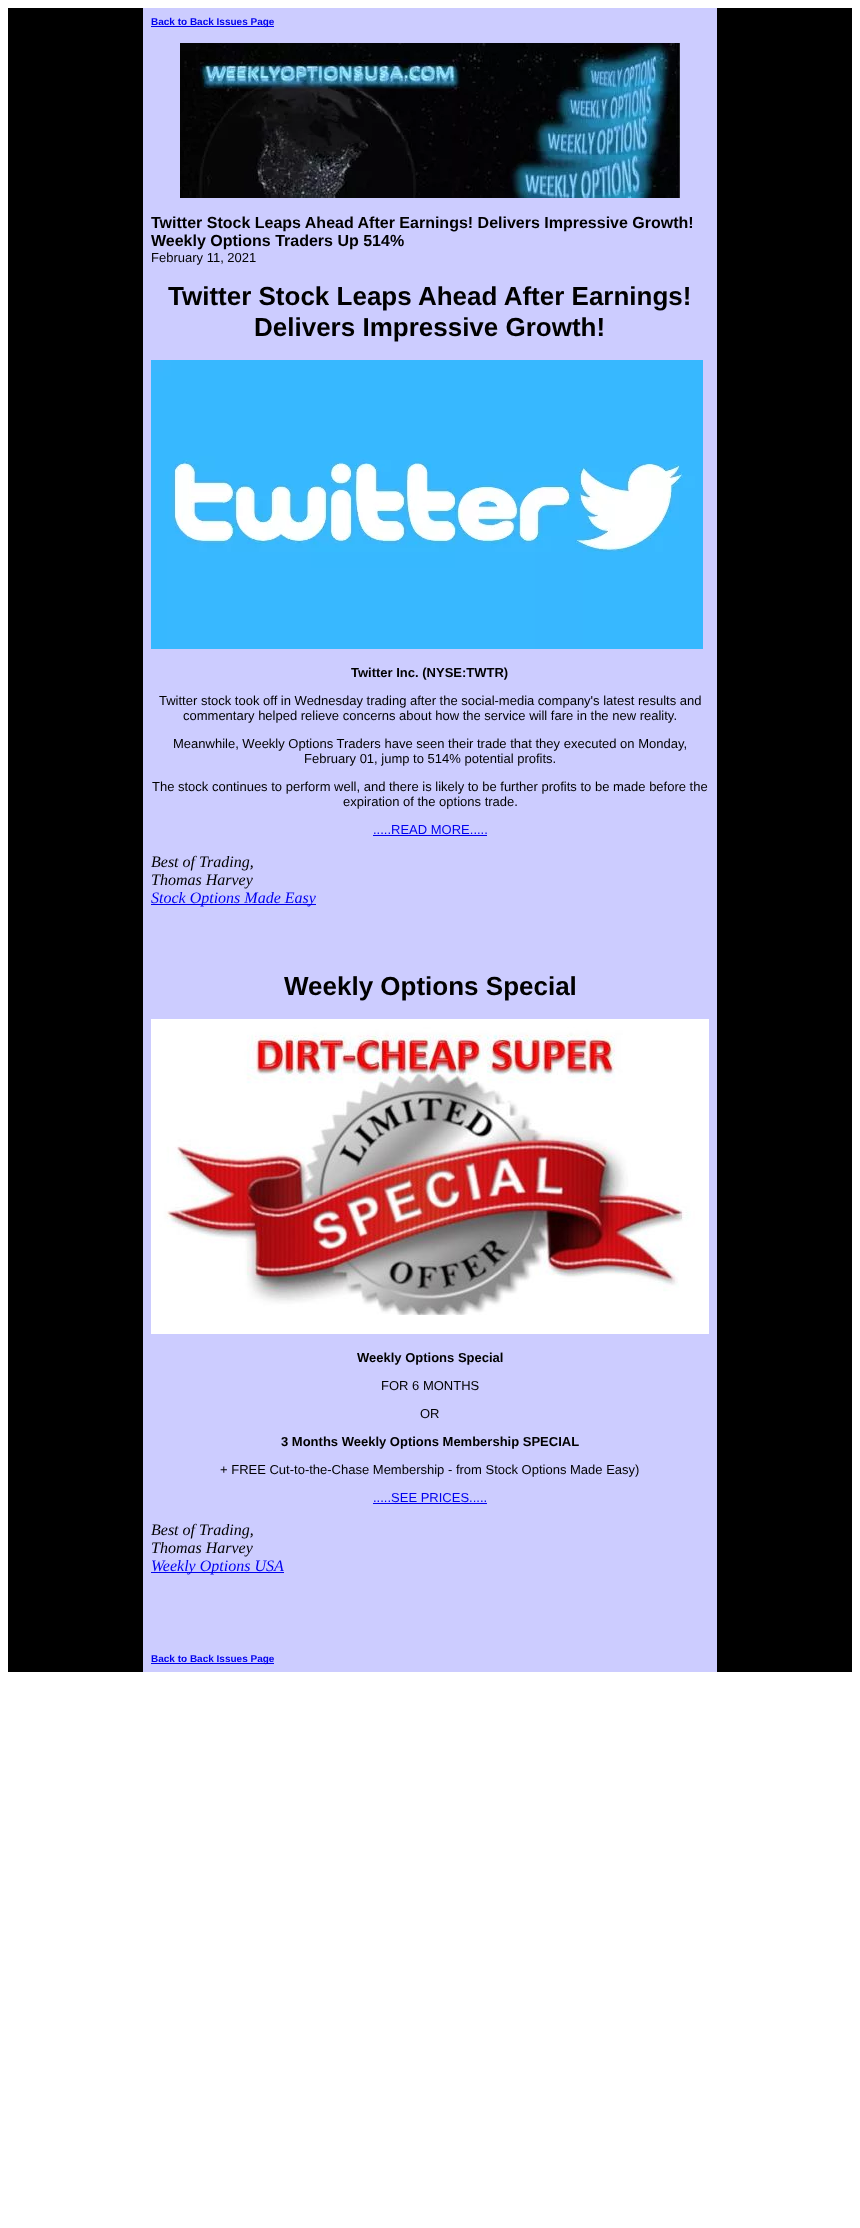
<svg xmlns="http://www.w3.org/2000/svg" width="860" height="2228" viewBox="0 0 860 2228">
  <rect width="100%" height="100%" fill="#fff"/>
  <path d="M8 8h844v1664H8z" fill="#000"/>
  <path d="M143 8h574v1664H143z" fill="#ccf"/>
  <path d="M151 26h123v1H151z" fill="#00e"/>
  <image x="180" y="43" width="500" height="155" href="img/1.png"/>
  <image x="151" y="360" width="552" height="289" href="img/2.png"/>
  <path d="M373 835h114v1H373z" fill="#00e"/>
  <path d="M151 904h165v1H151z" fill="#00e"/>
  <image x="151" y="1019" width="558" height="315" href="img/3.png"/>
  <path d="M373 1503h114v1H373z" fill="#00e"/>
  <path d="M151 1572h133v1H151z" fill="#00e"/>
  <path d="M151 1663h123v1H151z" fill="#00e"/>
  <text x="151" y="25" font-family="Liberation Sans" font-size="10" font-weight="bold" fill="#00e">Back to Back Issues Page</text>
  <g font-family="Liberation Sans" font-size="16" font-weight="bold" fill="#000">
    <text x="151" y="228">Twitter Stock Leaps Ahead After Earnings! Delivers Impressive Growth!</text>
    <text x="151" y="246">Weekly Options Traders Up 514%</text>
  </g>
  <text x="151" y="262" font-family="Liberation Sans" font-size="13" fill="#000">February 11, 2021</text>
  <g font-family="Liberation Sans" font-size="26" font-weight="bold" fill="#000">
    <text x="168" y="305">Twitter Stock Leaps Ahead After Earnings!</text>
    <text x="254" y="336">Delivers Impressive Growth!</text>
  </g>
  <text x="351" y="677" font-family="Liberation Sans" font-size="13" font-weight="bold" fill="#000">Twitter Inc. (NYSE:TWTR)</text>
  <g font-family="Liberation Sans" font-size="13" fill="#000">
    <text x="159" y="705">Twitter stock took off in Wednesday trading after the social-media company's latest results and</text>
    <text x="183" y="720">commentary helped relieve concerns about how the service will fare in the new reality.</text>
    <text x="173" y="748">Meanwhile, Weekly Options Traders have seen their trade that they executed on Monday,</text>
    <text x="304" y="763">February 01, jump to 514% potential profits.</text>
    <text x="152" y="791">The stock continues to perform well, and there is likely to be further profits to be made before the</text>
    <text x="343" y="806">expiration of the options trade.</text>
  </g>
  <text x="373" y="834" font-family="Liberation Sans" font-size="13" fill="#00e">.....READ MORE.....</text>
  <g font-family="Liberation Serif" font-size="16" font-style="italic" fill="#000">
    <text x="151" y="867">Best of Trading,</text>
    <text x="151" y="885">Thomas Harvey</text>
  </g>
  <text x="151" y="903" font-family="Liberation Serif" font-size="16" font-style="italic" fill="#00e">Stock Options Made Easy</text>
  <text x="284" y="995" font-family="Liberation Sans" font-size="26" font-weight="bold" fill="#000">Weekly Options Special</text>
  <text x="357" y="1362" font-family="Liberation Sans" font-size="13" font-weight="bold" fill="#000">Weekly Options Special</text>
  <g font-family="Liberation Sans" font-size="13" fill="#000">
    <text x="381" y="1390">FOR 6 MONTHS</text>
    <text x="420" y="1418">OR</text>
  </g>
  <text x="281" y="1446" font-family="Liberation Sans" font-size="13" font-weight="bold" fill="#000">3 Months Weekly Options Membership SPECIAL</text>
  <text x="220" y="1474" font-family="Liberation Sans" font-size="13" fill="#000">+ FREE Cut-to-the-Chase Membership - from Stock Options Made Easy)</text>
  <text x="373" y="1502" font-family="Liberation Sans" font-size="13" fill="#00e">.....SEE PRICES.....</text>
  <g font-family="Liberation Serif" font-size="16" font-style="italic" fill="#000">
    <text x="151" y="1535">Best of Trading,</text>
    <text x="151" y="1553">Thomas Harvey</text>
  </g>
  <text x="151" y="1571" font-family="Liberation Serif" font-size="16" font-style="italic" fill="#00e">Weekly Options USA</text>
  <text x="151" y="1662" font-family="Liberation Sans" font-size="10" font-weight="bold" fill="#00e">Back to Back Issues Page</text>
</svg>
